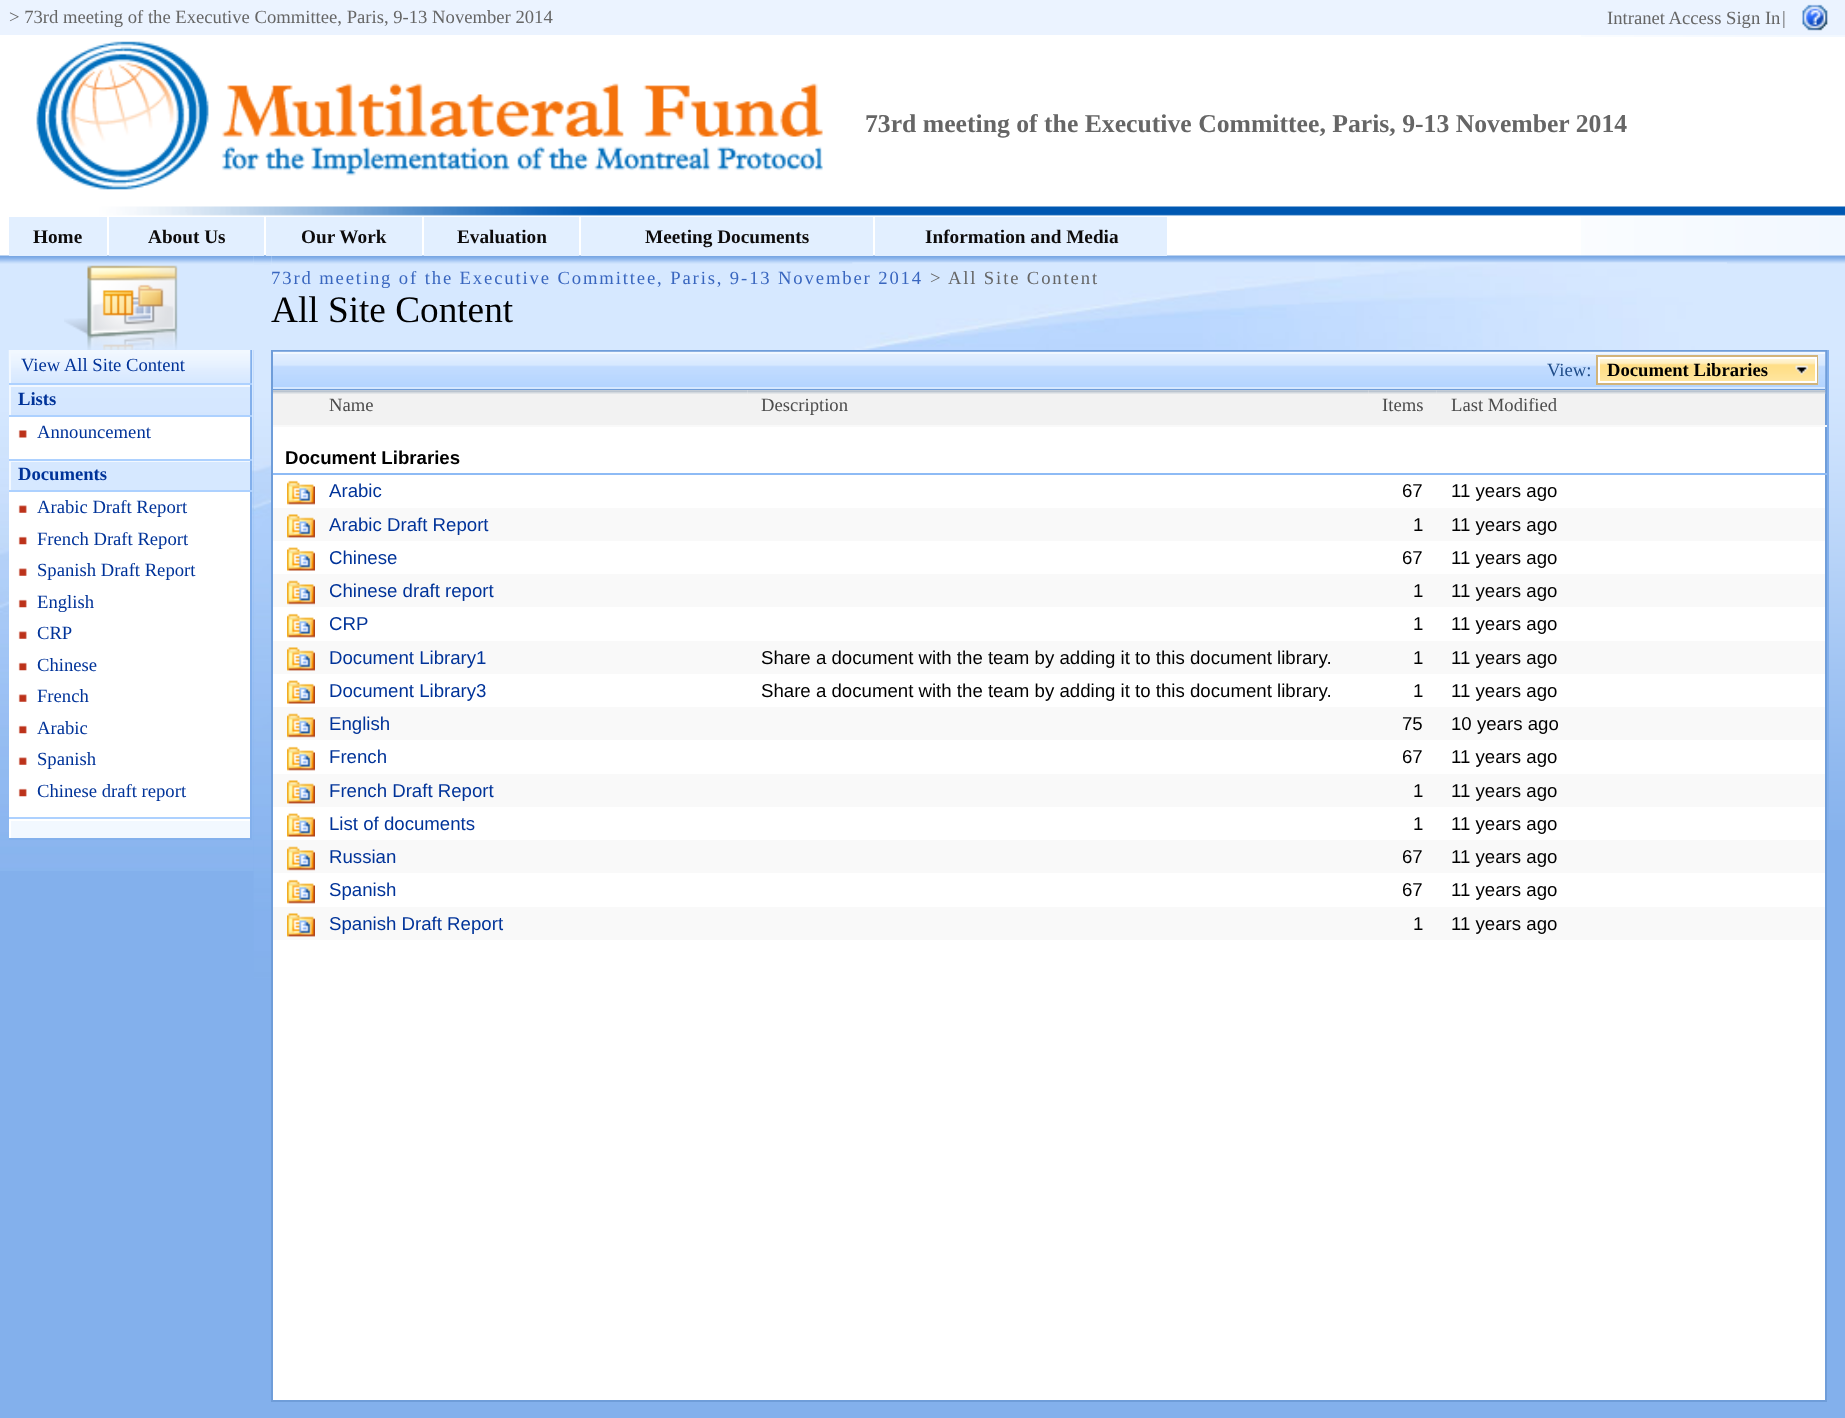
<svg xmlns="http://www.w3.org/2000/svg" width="1845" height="1418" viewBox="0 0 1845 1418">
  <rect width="100%" height="100%" fill="#fff"/>
  <path d="M0 0h1845v35H0z" fill="#ebf3ff"/>
  <image x="1802" y="4" width="26" height="27" href="img/1.png"/>
  <image x="1581" y="35" width="264" height="2" href="img/2.png"/>
  <image x="36" y="41" width="818" height="175" href="img/3.png"/>
  <image x="854" y="37" width="991" height="180" href="img/4.png"/>
  <image x="1581" y="217" width="264" height="39" href="img/5.png"/>
  <path d="M0 256h254v94H0z" fill="#d6e8ff"/>
  <image x="0" y="255" width="254" height="9" href="img/6.png"/>
  <path d="M9 217h98v39H9z" fill="#e2efff"/>
  <image x="253" y="255" width="13" height="11" href="img/8.png"/>
  <image x="253" y="255" width="18" height="11" href="img/9.png"/>
  <path d="M109 217h155v39H109z" fill="#e2efff"/>
  <path d="M271 256h1556v94H271z" fill="#d6e8ff"/>
  <image x="271" y="255" width="1556" height="9" href="img/10.png"/>
  <path d="M266 217h156v39H266z" fill="#e2efff"/>
  <path d="M424 217h155v39H424z" fill="#e2efff"/>
  <path d="M581 217h292v39H581z" fill="#e2efff"/>
  <path d="M875 217h292v39H875z" fill="#e2efff"/>
  <image x="64" y="265" width="114" height="85" href="img/7.png"/>
  <path d="M254 266h17v84H254z" fill="#d6e8ff"/>
  <image x="852" y="262" width="875" height="88" href="img/11.png"/>
  <path d="M1827 264h18v86H1827z" fill="#d6e8ff"/>
  <image x="1827" y="255" width="18" height="9" href="img/12.png"/>
  <path d="M0 350h254v1068H0z" fill="#83b0ec"/>
  <image x="0" y="350" width="254" height="521" href="img/13.png"/>
  <path d="M250 350h2v490H250z" fill="#83b0ec"/>
  <path d="M9 838h243v2H9z" fill="#83b0ec"/>
  <image x="8" y="350" width="243" height="34" href="img/14.png"/>
  <path d="M9 350h2v33H9z" fill="#f2f8ff"/>
  <path d="M9 383h243v2H9z" fill="#add1ff"/>
  <path d="M9 385h241v2H9z" fill="#f2f8ff"/>
  <path d="M9 385h2v30H9z" fill="#f2f8ff"/>
  <path d="M9 417h241v42H9z" fill="#fff"/>
  <path d="M9 415h243v2H9z" fill="#add1ff"/>
  <image x="18" y="430" width="9" height="8" href="img/15.png"/>
  <path d="M9 461h241v1H9z" fill="#f2f8ff"/>
  <path d="M9 460h2v30H9z" fill="#f2f8ff"/>
  <path d="M9 459h243v2H9z" fill="#add1ff"/>
  <path d="M11 462h239v28H11z" fill="#d6e8ff"/>
  <path d="M9 807h241v10H9z" fill="#fff"/>
  <path d="M9 490h243v2H9z" fill="#add1ff"/>
  <path d="M9 492h241v315H9z" fill="#fff"/>
  <image x="18" y="505" width="9" height="8" href="img/16.png"/>
  <image x="18" y="536" width="9" height="9" href="img/17.png"/>
  <image x="18" y="568" width="9" height="8" href="img/16.png"/>
  <image x="18" y="599" width="9" height="9" href="img/17.png"/>
  <image x="18" y="631" width="9" height="8" href="img/16.png"/>
  <image x="18" y="662" width="9" height="9" href="img/17.png"/>
  <image x="18" y="694" width="9" height="8" href="img/16.png"/>
  <image x="18" y="725" width="9" height="9" href="img/17.png"/>
  <image x="18" y="757" width="9" height="8" href="img/16.png"/>
  <image x="18" y="788" width="9" height="9" href="img/17.png"/>
  <path d="M9 817h241v2H9z" fill="#add1ff"/>
  <path d="M11 821h239v17H11z" fill="#f2f8ff"/>
  <path d="M9 819h241v2H9z" fill="#fff"/>
  <path d="M9 819h2v19H9z" fill="#fff"/>
  <path d="M254 978h17v440H254z" fill="#83b0ec"/>
  <image x="253" y="350" width="18" height="629" href="img/18.png"/>
  <path d="M271 350h1556v2H271z" fill="#6f9dd9"/>
  <path d="M1825 350h2v1050H1825z" fill="#6f9dd9"/>
  <path d="M271 350h2v1050H271z" fill="#6f9dd9"/>
  <image x="273" y="351" width="1553" height="40" href="img/19.png"/>
  <path d="M273 389h1552v1H273z" fill="#6f9dd9"/>
  <path d="M273 352h1552v2H273z" fill="#f2f8ff"/>
  <path d="M273 387h1552v2H273z" fill="#d6e8ff"/>
  <image x="1600" y="357" width="219" height="28" href="img/20.png"/>
  <path d="M1597 356h220v28H1597z" fill="none" stroke="#d2b47a" stroke-width="2"/>
  <image x="1795" y="365" width="14" height="10" href="img/21.png"/>
  <path d="M1599 358h217v24H1599z" fill="none" stroke="#fff" stroke-width="2"/>
  <path d="M273 390h1552v35H273z" fill="#f2f2f2"/>
  <image x="273" y="390" width="42" height="4" href="img/22.png"/>
  <image x="315" y="390" width="432" height="4" href="img/23.png"/>
  <image x="747" y="390" width="622" height="4" href="img/24.png"/>
  <image x="1368" y="390" width="69" height="4" href="img/25.png"/>
  <image x="1436" y="390" width="390" height="4" href="img/26.png"/>
  <path d="M273 425h1554v2H273z" fill="#f9f9f9"/>
  <path d="M273 473h1554v2H273z" fill="#8ebbf5"/>
  <image x="287" y="480" width="28" height="25" href="img/27.png"/>
  <path d="M273 508h1552v33H273z" fill="#f9f9f9"/>
  <image x="287" y="514" width="28" height="24" href="img/28.png"/>
  <image x="287" y="547" width="28" height="24" href="img/29.png"/>
  <path d="M273 574h1552v33H273z" fill="#f9f9f9"/>
  <image x="287" y="580" width="28" height="25" href="img/30.png"/>
  <image x="287" y="613" width="28" height="25" href="img/27.png"/>
  <path d="M273 641h1552v33H273z" fill="#f9f9f9"/>
  <image x="287" y="647" width="28" height="24" href="img/28.png"/>
  <image x="287" y="680" width="28" height="24" href="img/29.png"/>
  <path d="M273 707h1552v33H273z" fill="#f9f9f9"/>
  <image x="287" y="713" width="28" height="25" href="img/30.png"/>
  <image x="287" y="746" width="28" height="25" href="img/27.png"/>
  <path d="M273 774h1552v33H273z" fill="#f9f9f9"/>
  <image x="287" y="780" width="28" height="24" href="img/28.png"/>
  <image x="287" y="813" width="28" height="24" href="img/29.png"/>
  <path d="M273 840h1552v33H273z" fill="#f9f9f9"/>
  <image x="287" y="846" width="28" height="25" href="img/30.png"/>
  <image x="287" y="879" width="28" height="25" href="img/27.png"/>
  <path d="M273 907h1552v33H273z" fill="#f9f9f9"/>
  <image x="287" y="913" width="28" height="24" href="img/28.png"/>
  <path d="M1829 830h16v570H1829z" fill="#83b0ec"/>
  <image x="1829" y="350" width="16" height="480" href="img/31.png"/>
  <path d="M1827 350h2v1050H1827z" fill="#83b0ec"/>
  <path d="M271 1402h1556v16H271z" fill="#83b0ec"/>
  <path d="M271 1400h1556v2H271z" fill="#6f9dd9"/>
  <path d="M1827 1400h18v18H1827z" fill="#83b0ec"/>
  <g font-family="Liberation Serif" font-size="18.65" fill="#666">
    <text x="9" y="23">&gt; 73rd meeting of the Executive Committee, Paris, 9-13 November 2014</text>
    <text x="1607" y="24">Intranet Access Sign In</text>
    <text x="1782" y="24">|</text>
  </g>
  <text x="865" y="132" font-family="Liberation Serif" font-size="25.7" font-weight="bold" fill="#666">73rd meeting of the Executive Committee, Paris, 9-13 November 2014</text>
  <g font-family="Liberation Serif" font-size="19.25" font-weight="bold" fill="#0d0b0b">
    <text x="33" y="243">Home</text>
    <text x="148" y="243">About Us</text>
    <text x="301" y="243">Our Work</text>
    <text x="457" y="243">Evaluation</text>
    <text x="645" y="243">Meeting Documents</text>
    <text x="925" y="243">Information and Media</text>
  </g>
  <text x="271" y="284" font-family="Liberation Serif" font-size="18.65" letter-spacing="1.87" fill="#3966bf">73rd meeting of the Executive Committee, Paris, 9-13 November 2014</text>
  <text x="930" y="284" font-family="Liberation Serif" font-size="18.65" letter-spacing="1.87" fill="#666">&gt; All Site Content</text>
  <text x="271" y="322" font-family="Liberation Serif" font-size="37.25" fill="#000">All Site Content</text>
  <text x="21" y="371" font-family="Liberation Serif" font-size="18.65" fill="#039">View All Site Content</text>
  <text x="18" y="405" font-family="Liberation Serif" font-size="18.65" font-weight="bold" fill="#039">Lists</text>
  <text x="37" y="438" font-family="Liberation Serif" font-size="18.65" fill="#039">Announcement</text>
  <text x="18" y="480" font-family="Liberation Serif" font-size="18.65" font-weight="bold" fill="#039">Documents</text>
  <g font-family="Liberation Serif" font-size="18.65" fill="#039">
    <text x="37" y="513">Arabic Draft Report</text>
    <text x="37" y="545">French Draft Report</text>
    <text x="37" y="576">Spanish Draft Report</text>
    <text x="37" y="608">English</text>
    <text x="37" y="639">CRP</text>
    <text x="37" y="671">Chinese</text>
    <text x="37" y="702">French</text>
    <text x="37" y="734">Arabic</text>
    <text x="37" y="765">Spanish</text>
    <text x="37" y="797">Chinese draft report</text>
  </g>
  <text x="1547" y="376" font-family="Liberation Serif" font-size="18.65" fill="#204d89">View:</text>
  <text x="1607" y="376" font-family="Liberation Serif" font-size="18.65" font-weight="bold" fill="#000">Document Libraries</text>
  <g font-family="Liberation Serif" font-size="18.65" fill="#4c4c4c">
    <text x="329" y="411">Name</text>
    <text x="761" y="411">Description</text>
    <text x="1382" y="411">Items</text>
    <text x="1451" y="411">Last Modified</text>
  </g>
  <text x="285" y="464" font-family="Liberation Sans" font-size="18.65" font-weight="bold" fill="#000">Document Libraries</text>
  <text x="329" y="497" font-family="Liberation Sans" font-size="18.65" fill="#039">Arabic</text>
  <g font-family="Liberation Sans" font-size="18.65" fill="#000">
    <text x="1402" y="497">67</text>
    <text x="1451" y="497">11 years ago</text>
  </g>
  <text x="329" y="531" font-family="Liberation Sans" font-size="18.65" fill="#039">Arabic Draft Report</text>
  <g font-family="Liberation Sans" font-size="18.65" fill="#000">
    <text x="1413" y="531">1</text>
    <text x="1451" y="531">11 years ago</text>
  </g>
  <text x="329" y="564" font-family="Liberation Sans" font-size="18.65" fill="#039">Chinese</text>
  <g font-family="Liberation Sans" font-size="18.65" fill="#000">
    <text x="1402" y="564">67</text>
    <text x="1451" y="564">11 years ago</text>
  </g>
  <text x="329" y="597" font-family="Liberation Sans" font-size="18.65" fill="#039">Chinese draft report</text>
  <g font-family="Liberation Sans" font-size="18.65" fill="#000">
    <text x="1413" y="597">1</text>
    <text x="1451" y="597">11 years ago</text>
  </g>
  <text x="329" y="630" font-family="Liberation Sans" font-size="18.65" fill="#039">CRP</text>
  <g font-family="Liberation Sans" font-size="18.65" fill="#000">
    <text x="1413" y="630">1</text>
    <text x="1451" y="630">11 years ago</text>
  </g>
  <text x="329" y="664" font-family="Liberation Sans" font-size="18.65" fill="#039">Document Library1</text>
  <g font-family="Liberation Sans" font-size="18.65" fill="#000">
    <text x="761" y="664">Share a document with the team by adding it to this document library.</text>
    <text x="1413" y="664">1</text>
    <text x="1451" y="664">11 years ago</text>
  </g>
  <text x="329" y="697" font-family="Liberation Sans" font-size="18.65" fill="#039">Document Library3</text>
  <g font-family="Liberation Sans" font-size="18.65" fill="#000">
    <text x="761" y="697">Share a document with the team by adding it to this document library.</text>
    <text x="1413" y="697">1</text>
    <text x="1451" y="697">11 years ago</text>
  </g>
  <text x="329" y="730" font-family="Liberation Sans" font-size="18.65" fill="#039">English</text>
  <g font-family="Liberation Sans" font-size="18.65" fill="#000">
    <text x="1402" y="730">75</text>
    <text x="1451" y="730">10 years ago</text>
  </g>
  <text x="329" y="763" font-family="Liberation Sans" font-size="18.65" fill="#039">French</text>
  <g font-family="Liberation Sans" font-size="18.65" fill="#000">
    <text x="1402" y="763">67</text>
    <text x="1451" y="763">11 years ago</text>
  </g>
  <text x="329" y="797" font-family="Liberation Sans" font-size="18.65" fill="#039">French Draft Report</text>
  <g font-family="Liberation Sans" font-size="18.65" fill="#000">
    <text x="1413" y="797">1</text>
    <text x="1451" y="797">11 years ago</text>
  </g>
  <text x="329" y="830" font-family="Liberation Sans" font-size="18.65" fill="#039">List of documents</text>
  <g font-family="Liberation Sans" font-size="18.65" fill="#000">
    <text x="1413" y="830">1</text>
    <text x="1451" y="830">11 years ago</text>
  </g>
  <text x="329" y="863" font-family="Liberation Sans" font-size="18.65" fill="#039">Russian</text>
  <g font-family="Liberation Sans" font-size="18.65" fill="#000">
    <text x="1402" y="863">67</text>
    <text x="1451" y="863">11 years ago</text>
  </g>
  <text x="329" y="896" font-family="Liberation Sans" font-size="18.65" fill="#039">Spanish</text>
  <g font-family="Liberation Sans" font-size="18.65" fill="#000">
    <text x="1402" y="896">67</text>
    <text x="1451" y="896">11 years ago</text>
  </g>
  <text x="329" y="930" font-family="Liberation Sans" font-size="18.65" fill="#039">Spanish Draft Report</text>
  <g font-family="Liberation Sans" font-size="18.65" fill="#000">
    <text x="1413" y="930">1</text>
    <text x="1451" y="930">11 years ago</text>
  </g>
</svg>
